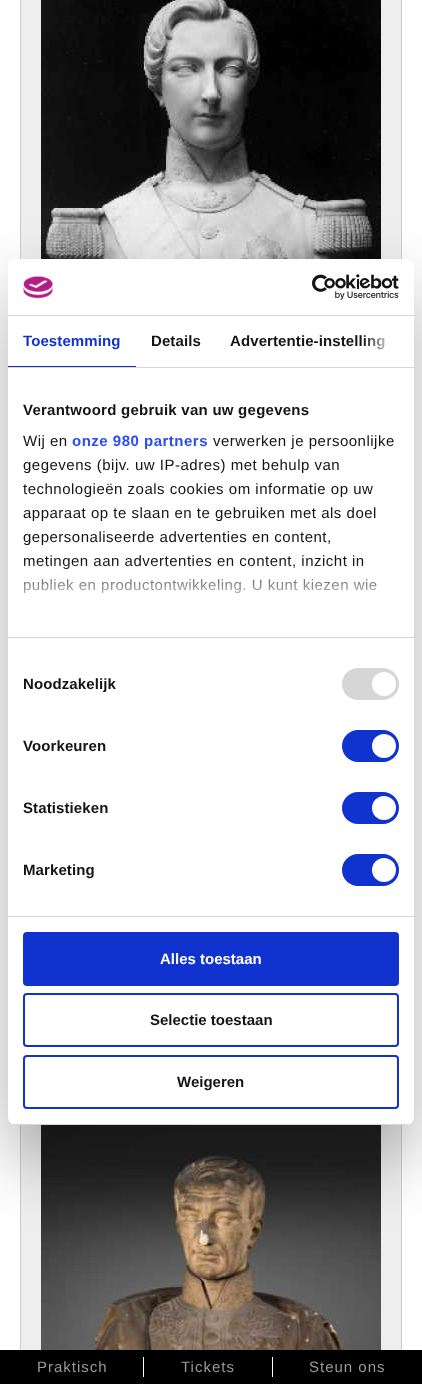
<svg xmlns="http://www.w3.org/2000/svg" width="422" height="1384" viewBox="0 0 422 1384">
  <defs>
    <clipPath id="clip1"><rect x="8" y="259" width="406" height="866" rx="8"/></clipPath>
    <linearGradient id="g1" gradientUnits="userSpaceOnUse" x1="414" y1="342" x2="362" y2="342"><stop offset="0" stop-color="#fff"/><stop offset="0.5" stop-color="#fff" stop-opacity="0.8"/><stop offset="1" stop-color="#fff" stop-opacity="0"/></linearGradient>
    <linearGradient id="g2" gradientUnits="userSpaceOnUse" x1="205" y1="637" x2="205" y2="562"><stop offset="0" stop-color="#fff"/><stop offset="0.5" stop-color="#fff" stop-opacity="0.8"/><stop offset="1" stop-color="#fff" stop-opacity="0"/></linearGradient>
  </defs>
  <rect width="100%" height="100%" fill="#fff"/>
  <path d="M21 0h380v259H21z" fill="#eee"/>
  <path d="M20.5 -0.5h381v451H20.5z" fill="none" stroke="#ccc"/>
  <image x="41" y="0" width="340" height="259" href="img/1.png"/>
  <path d="M21 1125h380v225H21z" fill="#eee"/>
  <path d="M20.5 1100.5h381v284H20.5z" fill="none" stroke="#ccc"/>
  <image x="41" y="1125" width="340" height="225" href="img/2.png"/>
  <rect x="8" y="291" width="406" height="866" rx="8" fill="#0000004d" filter="blur(34px)"/>
  <rect x="8" y="259" width="406" height="866" rx="8" fill="#fff"/>
  <path d="M8 315h406v1H8z" fill="#d6d6d6"/>
  <image x="23" y="276" width="30" height="23" href="img/3.png"/>
  <image x="312" y="274" width="87" height="26" href="img/4.png"/>
  <path d="M8 367h406v1H8z" fill="#d6d6d6"/>
  <path d="M8 366h128v1H8z" fill="#1032cf"/>
  <path d="M8 637h406v1H8z" fill="#d6d6d6"/>
  <path d="M8 916h406v1H8z" fill="#d6d6d6"/>
  <rect x="342" y="668" width="57" height="32" rx="16" fill="#d6d6d6"/>
  <circle cx="384" cy="684" r="12" fill="#fff"/>
  <rect x="342" y="730" width="57" height="32" rx="16" fill="#1032cf"/>
  <circle cx="384" cy="746" r="12" fill="#fff"/>
  <rect x="342" y="792" width="57" height="32" rx="16" fill="#1032cf"/>
  <circle cx="384" cy="808" r="12" fill="#fff"/>
  <rect x="342" y="854" width="57" height="32" rx="16" fill="#1032cf"/>
  <circle cx="384" cy="870" r="12" fill="#fff"/>
  <g clip-path="url(#clip1)">
    <path d="M8 1124h406v1H8z" fill="#d6d6d6"/>
  </g>
  <rect x="24" y="933" width="374" height="52" rx="3" fill="#1032cf" stroke="#1032cf" stroke-width="2"/>
  <rect x="24" y="994" width="374" height="52" rx="3" fill="none" stroke="#1032cf" stroke-width="2"/>
  <rect x="24" y="1056" width="374" height="52" rx="3" fill="none" stroke="#1032cf" stroke-width="2"/>
  <path d="M0 1350h422v34H0z" fill="#000"/>
  <path d="M143 1357h1v20H143z" fill="#fff"/>
  <path d="M272 1357h1v20H272z" fill="#fff"/>
  <text x="23" y="346" font-family="Liberation Sans" font-size="15" font-weight="bold" letter-spacing="0.1" fill="#1032cf">Toestemming</text>
  <g font-family="Liberation Sans" font-size="15" font-weight="bold" letter-spacing="0.1" fill="#141414">
    <text x="151" y="346">Details</text>
    <text x="230" y="346">Advertentie-instelling</text>
  </g>
  <path d="M364 335h21v15H364z" fill="url(#g1)"/>
  <text x="23" y="415" font-family="Liberation Sans" font-size="15" font-weight="bold" letter-spacing="0.25" fill="#141414">Verantwoord gebruik van uw gegevens</text>
  <text x="23" y="446" font-family="Liberation Sans" font-size="15" letter-spacing="0.5" fill="#141414">Wij en</text>
  <text x="72" y="446" font-family="Liberation Sans" font-size="15" font-weight="bold" letter-spacing="0.5" fill="#2a4eef">onze 980 partners</text>
  <g font-family="Liberation Sans" font-size="15" letter-spacing="0.5" fill="#141414">
    <text x="213" y="446">verwerken je persoonlijke</text>
    <text x="23" y="470">gegevens (bijv. uw IP-adres) met behulp van</text>
    <text x="23" y="494">technologieën zoals cookies om informatie op uw</text>
    <text x="23" y="518">apparaat op te slaan en te gebruiken met als doel</text>
    <text x="23" y="542">gepersonaliseerde advertenties en content,</text>
    <text x="23" y="566">metingen aan advertenties en content, inzicht in</text>
    <text x="23" y="590">publiek en productontwikkeling. U kunt kiezen wie</text>
  </g>
  <path d="M24 563h353v31H24z" fill="url(#g2)"/>
  <g font-family="Liberation Sans" font-size="15" font-weight="bold" letter-spacing="0.1" fill="#141414">
    <text x="23" y="689">Noodzakelijk</text>
    <text x="23" y="751">Voorkeuren</text>
    <text x="23" y="813">Statistieken</text>
    <text x="23" y="875">Marketing</text>
  </g>
  <text x="160" y="964" font-family="Liberation Sans" font-size="15" font-weight="bold" fill="#fff">Alles toestaan</text>
  <g font-family="Liberation Sans" font-size="15" font-weight="bold" fill="#141414">
    <text x="150" y="1025">Selectie toestaan</text>
    <text x="177" y="1087">Weigeren</text>
  </g>
  <g font-family="Liberation Sans" font-size="15" letter-spacing="1" fill="#999">
    <text x="37" y="1372">Praktisch</text>
    <text x="181" y="1372">Tickets</text>
    <text x="309" y="1372">Steun ons</text>
  </g>
</svg>
